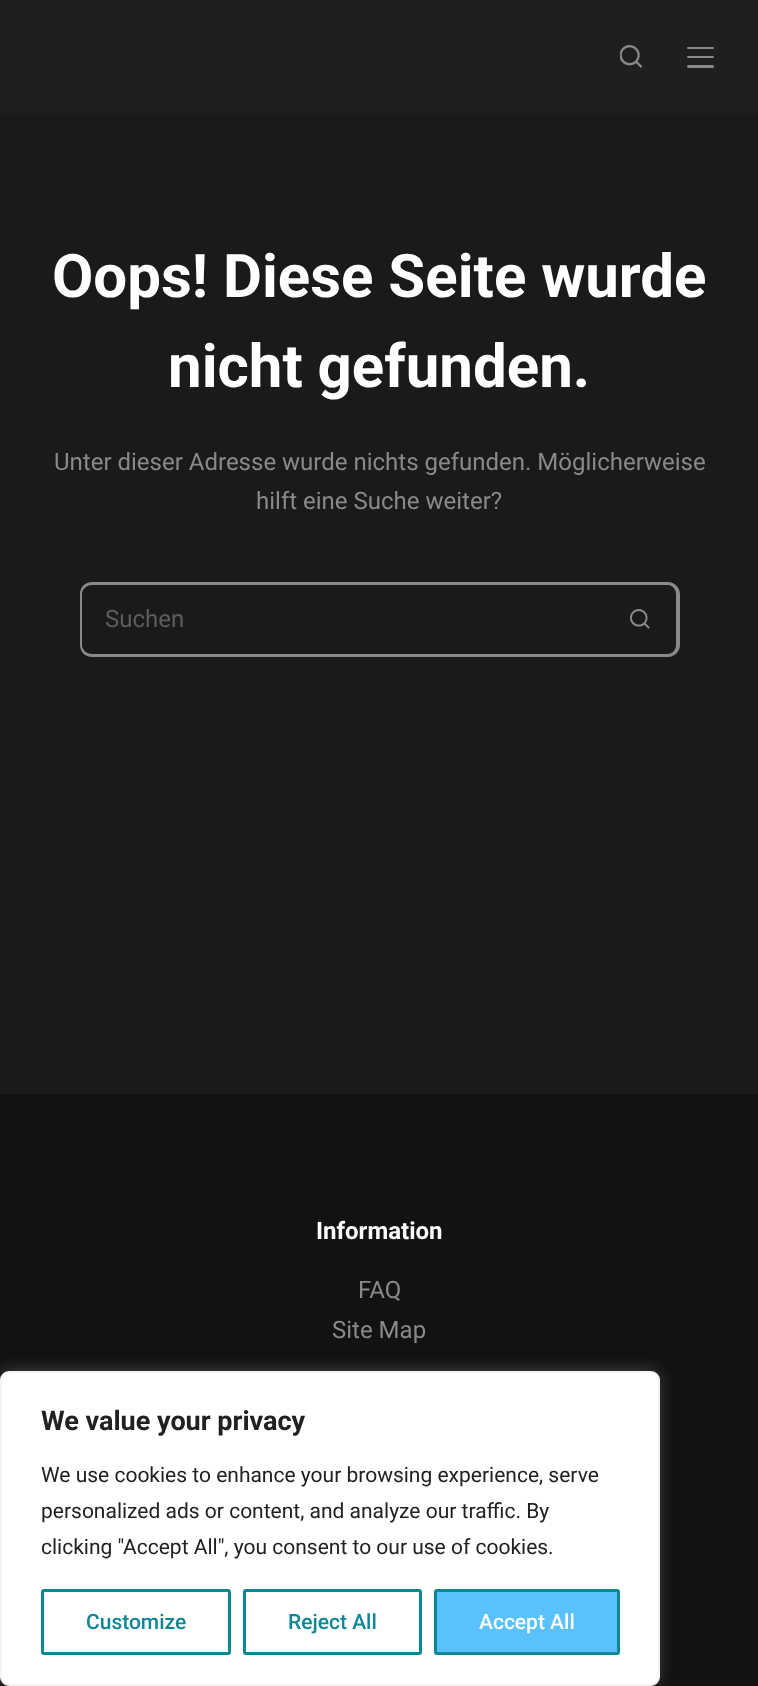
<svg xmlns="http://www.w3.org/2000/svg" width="758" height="1686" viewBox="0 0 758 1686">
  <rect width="100%" height="100%" fill="#1a1a1a"/>
  <path d="M0 0h758v113H0z" fill="#1f1f1f"/>
  <image x="620" y="45" width="22" height="23" href="img/1.png"/>
  <rect x="687" y="47" width="27" height="2" rx="1" fill="#898989"/>
  <rect x="687" y="56" width="27" height="2" rx="1" fill="#898989"/>
  <rect x="687" y="65" width="27" height="3" rx="1.5" fill="#898989"/>
  <path d="M92 582H604V657H92C85 657 80 652 80 645V594C80 587 85 582 92 582ZM92 585H604V654H92C87 654 82 650 82 645V594C82 589 87 585 92 585Z" fill="#898989" fill-rule="evenodd"/>
  <path d="M604 582H668C674 582 680 587 680 594V645C680 652 674 657 668 657H604ZM604 585H668C672 585 676 589 676 594V645C676 650 672 654 668 654H604Z" fill="#898989" fill-rule="evenodd"/>
  <image x="630" y="609" width="20" height="20" href="img/2.png"/>
  <path d="M0 1094h758v592H0z" fill="#121212"/>
  <rect y="1370" width="660" height="315" rx="9" fill="#acabab4d" filter="blur(7.5px)"/>
  <rect x="1" y="1372" width="658" height="313" rx="8" fill="#fff" stroke="#f4f4f4" stroke-width="2"/>
  <rect x="42.5" y="1590.5" width="187" height="63" rx="1.5" fill="none" stroke="#0e8695" stroke-width="3"/>
  <rect x="244.5" y="1590.5" width="176" height="63" rx="1.5" fill="none" stroke="#0e8695" stroke-width="3"/>
  <rect x="435.5" y="1590.5" width="183" height="63" rx="1.5" fill="#59c1fc" stroke="#0e8695" stroke-width="3"/>
  <g font-family="Roboto" font-size="60" font-weight="bold" fill="#fff">
    <text x="52" y="297">Oops! Diese Seite wurde</text>
    <text x="168" y="387">nicht gefunden.</text>
  </g>
  <g font-family="Roboto" font-size="24" fill="#898989">
    <text x="54" y="470">Unter dieser Adresse wurde nichts gefunden. Möglicherweise</text>
    <text x="256" y="509">hilft eine Suche weiter?</text>
  </g>
  <text x="105" y="627" font-family="Roboto" font-size="24" fill="#5d5d5d">Suchen</text>
  <text x="316" y="1239" font-family="Roboto" font-size="24" font-weight="bold" fill="#fff">Information</text>
  <g font-family="Roboto" font-size="24" fill="#898989">
    <text x="358" y="1298">FAQ</text>
    <text x="332" y="1338">Site Map</text>
  </g>
  <text x="41" y="1430" font-family="Roboto" font-size="27" font-weight="bold" fill="#212121">We value your privacy</text>
  <g font-family="Roboto" font-size="21" fill="#212121">
    <text x="41" y="1482">We use cookies to enhance your browsing experience, serve</text>
    <text x="41" y="1518">personalized ads or content, and analyze our traffic. By</text>
    <text x="41" y="1554">clicking "Accept All", you consent to our use of cookies.</text>
  </g>
  <g font-family="Roboto" font-size="21" font-weight="500" fill="#0e8695">
    <text x="86" y="1629">Customize</text>
    <text x="288" y="1629">Reject All</text>
  </g>
  <text x="479" y="1629" font-family="Roboto" font-size="21" font-weight="500" fill="#fff">Accept All</text>
</svg>
